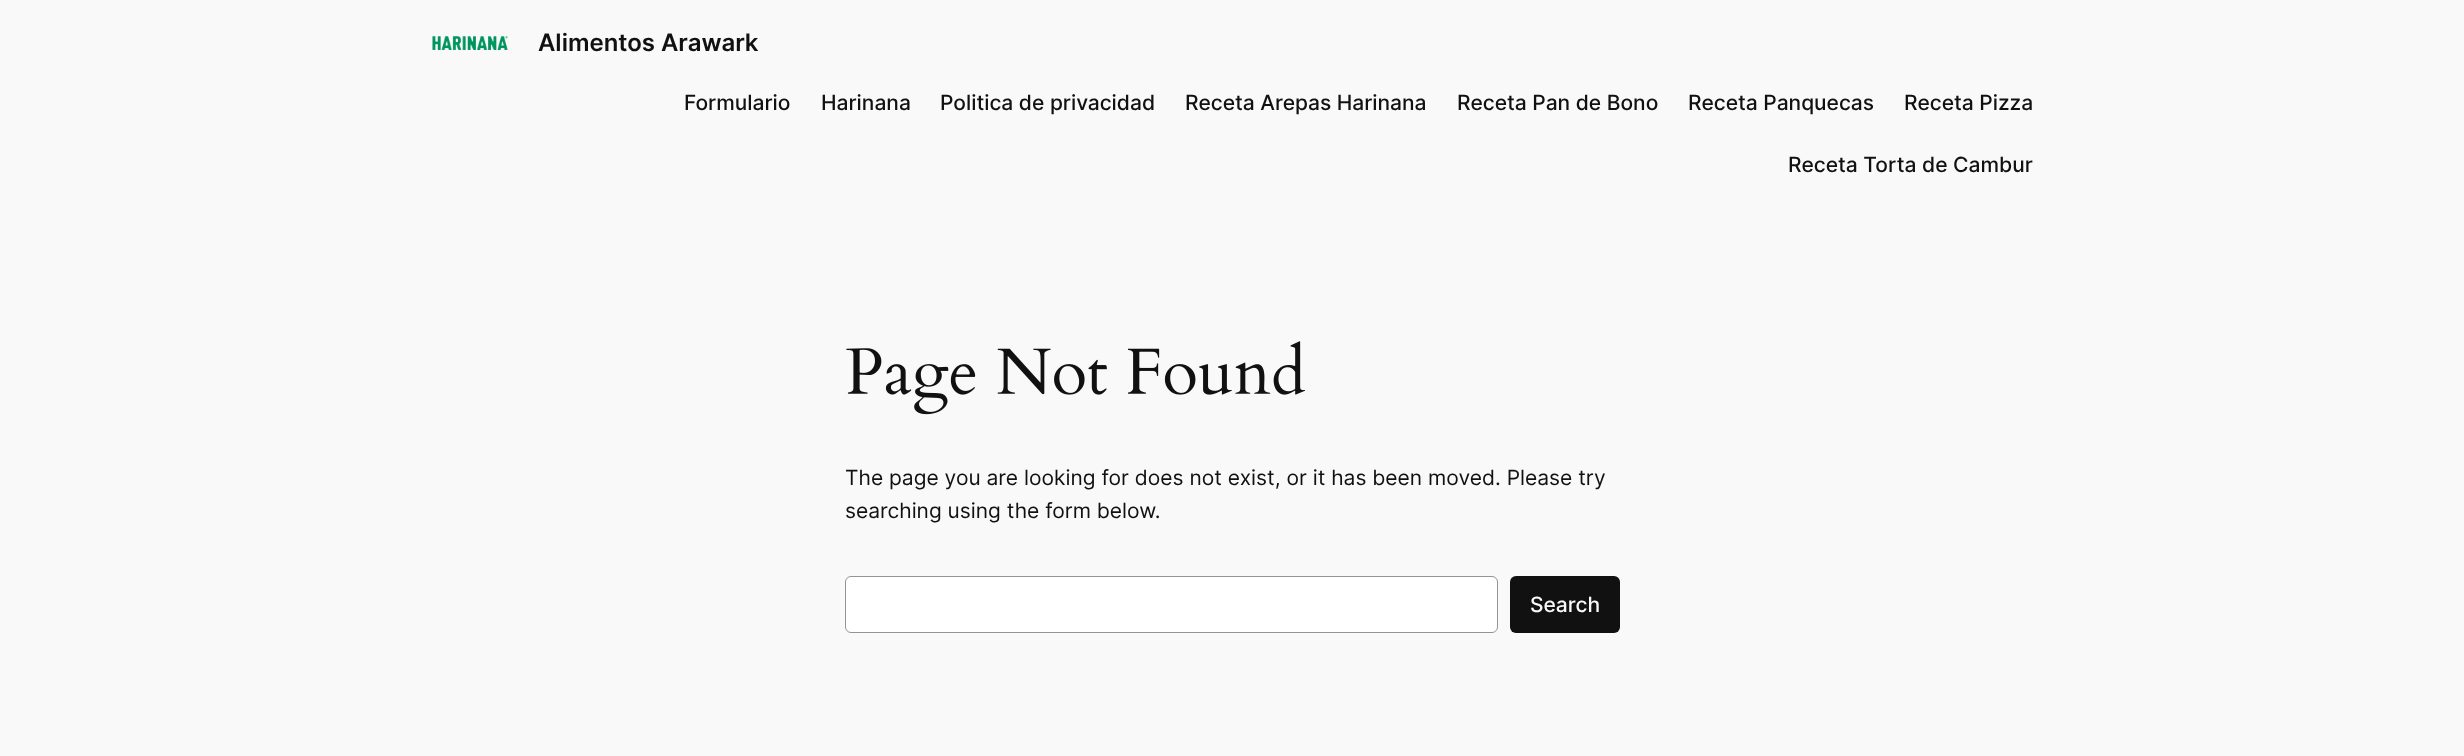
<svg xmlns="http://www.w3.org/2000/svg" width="2464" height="756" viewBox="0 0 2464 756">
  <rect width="100%" height="100%" fill="#f9f9f9"/>
  <image x="432" y="36" width="76" height="14" href="img/1.png"/>
  <image x="846" y="341" width="459" height="74" href="img/2.png"/>
  <rect x="845.5" y="576.5" width="652" height="56" rx="5.5" fill="#fff" stroke="#949494"/>
  <rect x="1510" y="576" width="110" height="57" rx="6" fill="#111"/>
  <text x="538" y="51" font-family="Inter" font-size="24" font-weight="600" fill="#111">Alimentos Arawark</text>
  <g font-family="Inter" font-size="21" font-weight="500" fill="#111">
    <text x="684" y="110">Formulario</text>
    <text x="821" y="110">Harinana</text>
    <text x="940" y="110">Politica de privacidad</text>
    <text x="1185" y="110">Receta Arepas Harinana</text>
    <text x="1457" y="110">Receta Pan de Bono</text>
    <text x="1688" y="110">Receta Panquecas</text>
    <text x="1904" y="110">Receta Pizza</text>
    <text x="1788" y="172">Receta Torta de Cambur</text>
  </g>
  <g font-family="Inter" font-size="21" fill="#111">
    <text x="845" y="485">The page you are looking for does not exist, or it has been moved. Please try</text>
    <text x="845" y="518">searching using the form below.</text>
  </g>
  <text x="1530" y="612" font-family="Inter" font-size="21" font-weight="500" fill="#f9f9f9">Search</text>
</svg>
